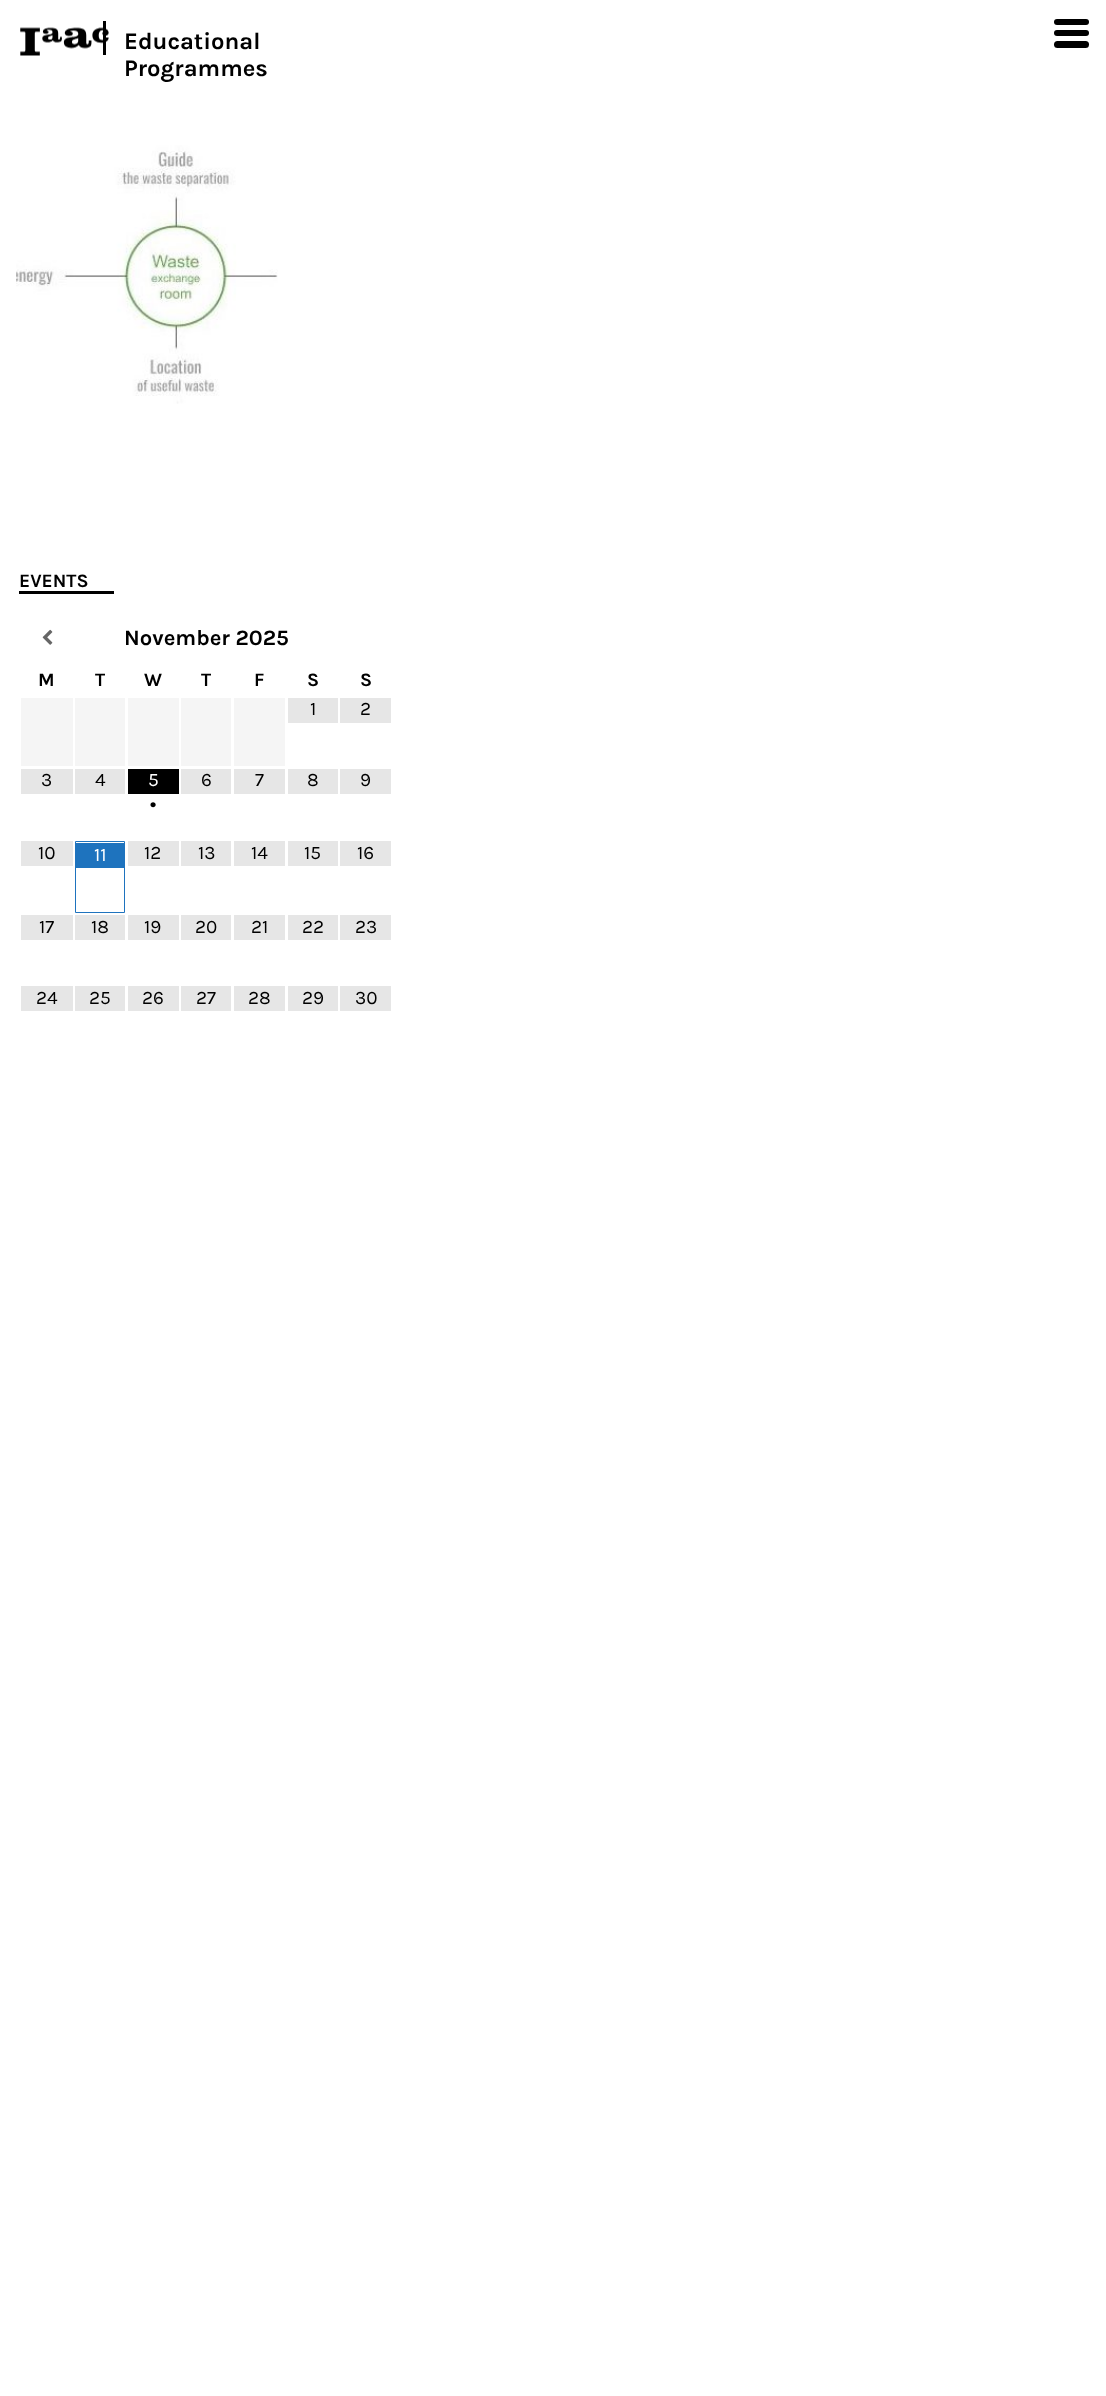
<svg xmlns="http://www.w3.org/2000/svg" width="1106" height="2396" viewBox="0 0 1106 2396">
  <rect width="100%" height="100%" fill="#fff"/>
  <image x="20" y="27" width="89" height="29" href="img/1.png"/>
  <path d="M103 21h3v34H103z" fill="#000"/>
  <rect x="1054" y="19" width="35" height="6" rx="3" fill="#000"/>
  <rect x="1054" y="30" width="35" height="6" rx="3" fill="#000"/>
  <rect x="1054" y="41" width="35" height="7" rx="3.5" fill="#000"/>
  <image x="16" y="145" width="262" height="259" href="img/2.png"/>
  <path d="M19 591h95v3H19z" fill="#000"/>
  <image x="42" y="629" width="11" height="16" href="img/3.png"/>
  <path d="M21 698h52v68H21z" fill="#f5f5f5"/>
  <path d="M75 698h50v68H75z" fill="#f5f5f5"/>
  <path d="M128 698h51v68H128z" fill="#f5f5f5"/>
  <path d="M181 698h50v68H181z" fill="#f5f5f5"/>
  <path d="M234 698h51v68H234z" fill="#f5f5f5"/>
  <path d="M288 698h50v25H288z" fill="#e6e6e6"/>
  <path d="M340 698h51v25H340z" fill="#e6e6e6"/>
  <path d="M21 769h52v25H21z" fill="#e6e6e6"/>
  <path d="M75 769h50v25H75z" fill="#e6e6e6"/>
  <path d="M128 769h51v25H128z" fill="#000"/>
  <path d="M181 769h50v25H181z" fill="#e6e6e6"/>
  <path d="M234 769h51v25H234z" fill="#e6e6e6"/>
  <path d="M288 769h50v25H288z" fill="#e6e6e6"/>
  <path d="M340 769h51v25H340z" fill="#e6e6e6"/>
  <path d="M21 841h52v25H21z" fill="#e6e6e6"/>
  <path d="M75.5 841.5h49v71H75.5z" fill="none" stroke="#1e73be"/>
  <path d="M76 843h48v25H76z" fill="#1e73be"/>
  <path d="M128 841h51v25H128z" fill="#e6e6e6"/>
  <path d="M181 841h50v25H181z" fill="#e6e6e6"/>
  <path d="M234 841h51v25H234z" fill="#e6e6e6"/>
  <path d="M288 841h50v25H288z" fill="#e6e6e6"/>
  <path d="M340 841h51v25H340z" fill="#e6e6e6"/>
  <path d="M21 915h52v25H21z" fill="#e6e6e6"/>
  <path d="M75 915h50v25H75z" fill="#e6e6e6"/>
  <path d="M128 915h51v25H128z" fill="#e6e6e6"/>
  <path d="M181 915h50v25H181z" fill="#e6e6e6"/>
  <path d="M234 915h51v25H234z" fill="#e6e6e6"/>
  <path d="M288 915h50v25H288z" fill="#e6e6e6"/>
  <path d="M340 915h51v25H340z" fill="#e6e6e6"/>
  <path d="M21 986h52v25H21z" fill="#e6e6e6"/>
  <path d="M75 986h50v25H75z" fill="#e6e6e6"/>
  <path d="M128 986h51v25H128z" fill="#e6e6e6"/>
  <path d="M181 986h50v25H181z" fill="#e6e6e6"/>
  <path d="M234 986h51v25H234z" fill="#e6e6e6"/>
  <path d="M288 986h50v25H288z" fill="#e6e6e6"/>
  <path d="M340 986h51v25H340z" fill="#e6e6e6"/>
  <g font-family="Karla" font-size="23.75" font-weight="bold" fill="#000">
    <text x="124" y="49">Educational</text>
    <text x="124" y="76">Programmes</text>
  </g>
  <text x="19" y="587" font-family="Karla" font-size="19" font-weight="bold" fill="#000">EVENTS</text>
  <text x="124" y="645" font-family="Karla" font-size="22" font-weight="bold" fill="#000">November 2025</text>
  <g font-family="Karla" font-size="19" font-weight="bold" fill="#000">
    <text x="38" y="686">M</text>
    <text x="95" y="686">T</text>
    <text x="144" y="686">W</text>
    <text x="201" y="686">T</text>
    <text x="254" y="686">F</text>
    <text x="307" y="686">S</text>
    <text x="360" y="686">S</text>
  </g>
  <g font-family="Karla" font-size="19" fill="#000">
    <text x="310" y="715">1</text>
    <text x="360" y="715">2</text>
    <text x="41" y="786">3</text>
    <text x="95" y="786">4</text>
  </g>
  <text x="148" y="786" font-family="Karla" font-size="19" fill="#fff">5</text>
  <text x="150" y="810" font-family="Karla" font-size="19" font-weight="bold" fill="#000">•</text>
  <g font-family="Karla" font-size="19" fill="#000">
    <text x="201" y="786">6</text>
    <text x="255" y="786">7</text>
    <text x="307" y="786">8</text>
    <text x="360" y="786">9</text>
    <text x="38" y="859">10</text>
  </g>
  <text x="94" y="861" font-family="Karla" font-size="19" fill="#fff">11</text>
  <g font-family="Karla" font-size="19" fill="#000">
    <text x="144" y="859">12</text>
    <text x="198" y="859">13</text>
    <text x="251" y="859">14</text>
    <text x="304" y="859">15</text>
    <text x="357" y="859">16</text>
    <text x="39" y="933">17</text>
    <text x="91" y="933">18</text>
    <text x="144" y="933">19</text>
    <text x="195" y="933">20</text>
    <text x="251" y="933">21</text>
    <text x="302" y="933">22</text>
    <text x="355" y="933">23</text>
    <text x="36" y="1004">24</text>
    <text x="89" y="1004">25</text>
    <text x="142" y="1004">26</text>
    <text x="196" y="1004">27</text>
    <text x="248" y="1004">28</text>
    <text x="302" y="1004">29</text>
    <text x="355" y="1004">30</text>
  </g>
</svg>
